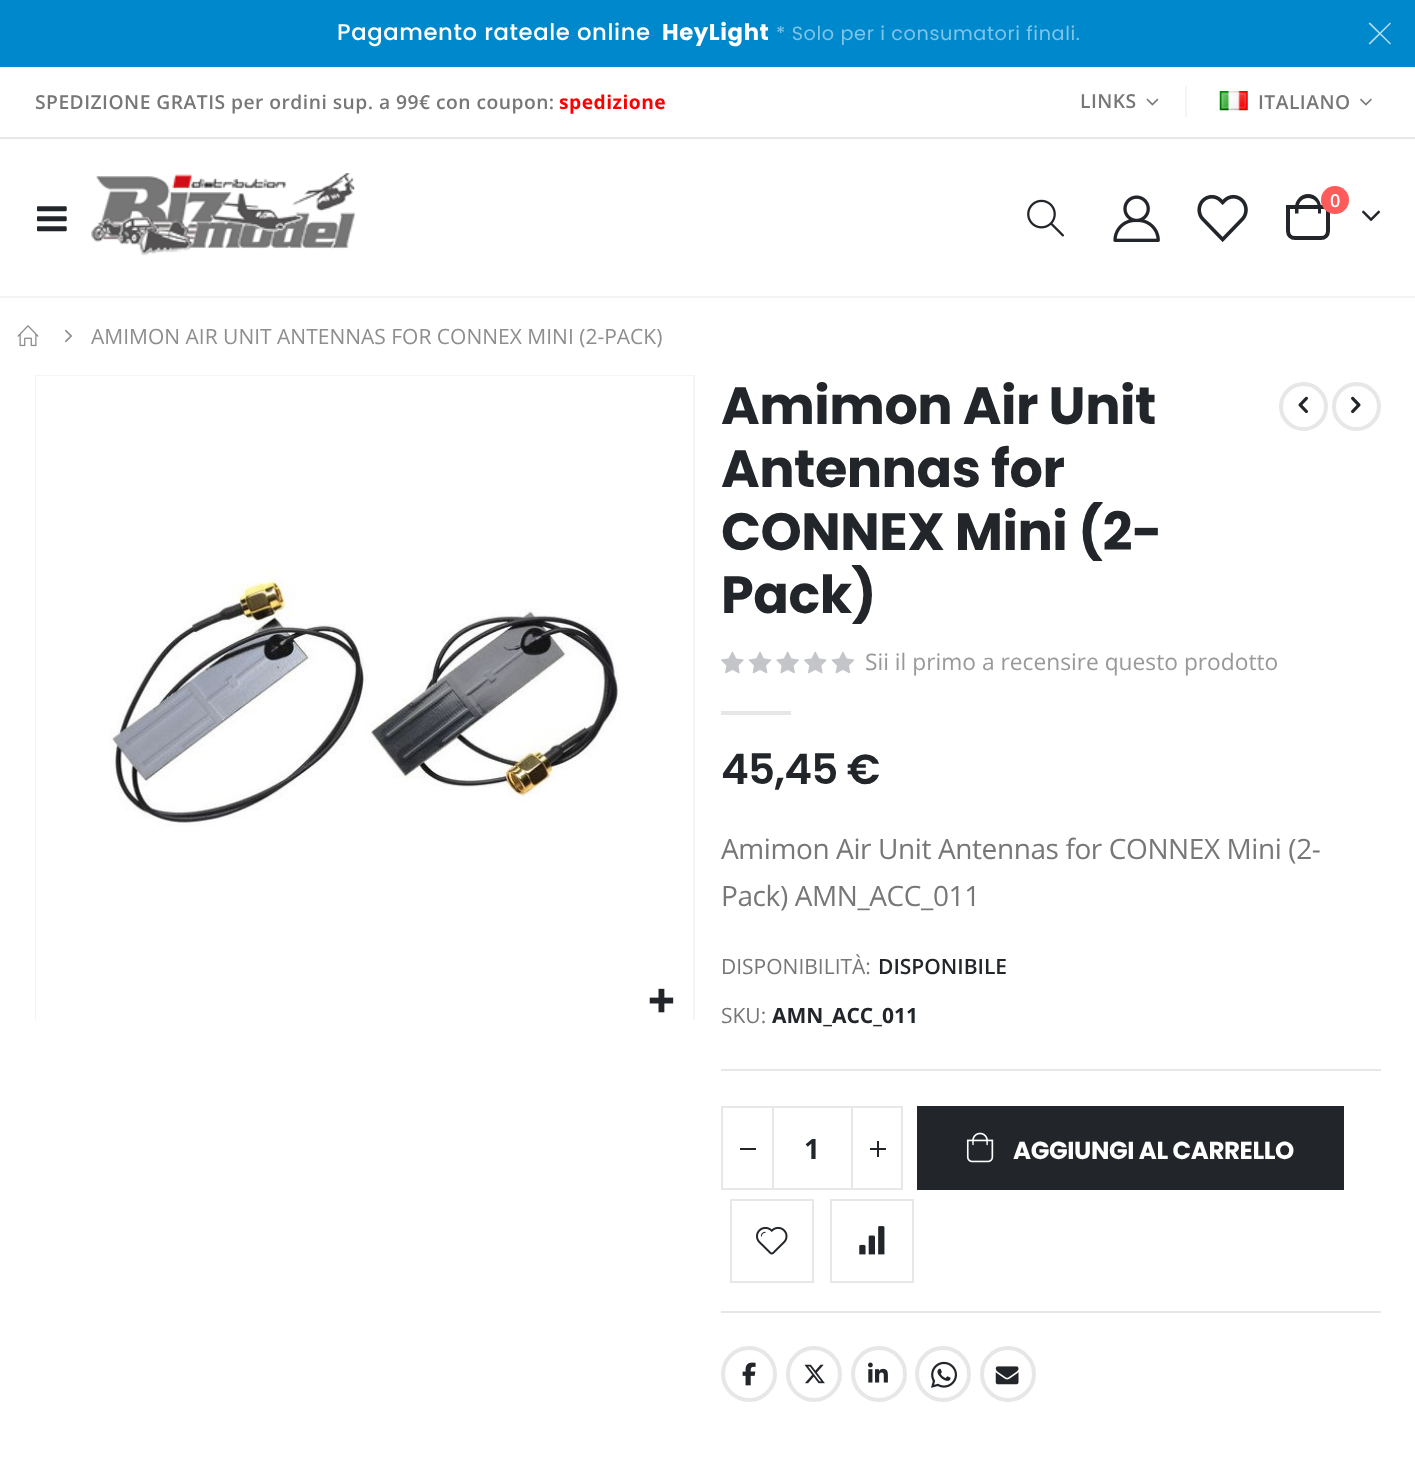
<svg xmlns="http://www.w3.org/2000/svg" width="1415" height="1467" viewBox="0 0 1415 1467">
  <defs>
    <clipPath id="clip1"><path d="M35 375h660v645H35z"/></clipPath>
  </defs>
  <rect width="100%" height="100%" fill="#fff"/>
  <path d="M0 0h1415v67H0z" fill="#08c"/>
  <path d="M1370 22.5L1391 43.5L1390 44.5L1368.5 23.5Z" fill="#b3dbf0"/>
  <path d="M1390 22.5L1391 23.5L1370 44.5L1368.5 43.5Z" fill="#b3dbf0"/>
  <path d="M0 296h1415v2H0z" fill="#f4f4f4"/>
  <image x="1146" y="98" width="13" height="8" href="img/1.png"/>
  <path d="M1185 86h2v31H1185z" fill="#f5f5f5"/>
  <image x="1219" y="91" width="29" height="20" href="img/2.png"/>
  <image x="1360" y="98" width="12" height="8" href="img/3.png"/>
  <path d="M0 137h1415v2H0z" fill="#e7e7e7"/>
  <image x="37" y="206" width="30" height="26" href="img/4.png"/>
  <image x="91" y="173" width="265" height="83" href="img/5.png"/>
  <image x="1027" y="199" width="37" height="38" href="img/6.png"/>
  <image x="1113" y="195" width="47" height="47" href="img/7.png"/>
  <image x="1197" y="194" width="51" height="49" href="img/8.png"/>
  <path d="M1288 207H1328V231C1328 235 1325 238 1321 238H1295C1291 238 1288 235 1288 231Z" fill="none" stroke="#222529" stroke-width="4"/>
  <path d="M1308 194C1315.5 194 1321 200 1321 207.5V213.5H1295V207.5C1295 200 1301 194 1308 194ZM1308 198C1313.5 198 1318 202 1318 207.5V213.5H1298.5V207.5C1298.5 202 1303 198 1308 198Z" fill="#222529" fill-rule="evenodd"/>
  <circle cx="1335" cy="200" r="14" fill="#ff5b5b"/>
  <image x="1362" y="210" width="19" height="12" href="img/9.png"/>
  <image x="17" y="325" width="22" height="22" href="img/10.png"/>
  <image x="64" y="329" width="8" height="14" href="img/11.png"/>
  <g clip-path="url(#clip1)">
    <path d="M36 376h658v657H36z" fill="none" stroke="#f4f4f4" stroke-width="2"/>
  </g>
  <image x="36" y="376" width="657" height="644" href="img/12.png"/>
  <image x="649" y="988" width="25" height="25" href="img/13.png"/>
  <circle cx="1303.5" cy="406.5" r="22.5" fill="none" stroke="#e7e7e7" stroke-width="4"/>
  <image x="1298" y="396" width="10" height="18" href="img/14.png"/>
  <circle cx="1356.5" cy="406.5" r="22.5" fill="none" stroke="#e7e7e7" stroke-width="4"/>
  <image x="1351" y="396" width="10" height="18" href="img/15.png"/>
  <image x="721" y="651" width="134" height="23" href="img/16.png"/>
  <path d="M721 711h70v4H721z" fill="#e7e7e7"/>
  <path d="M721 1069h660v2H721z" fill="#e7e7e7"/>
  <path d="M721 1311h660v2H721z" fill="#e7e7e7"/>
  <path d="M722 1107h51v82H722z" fill="none" stroke="#e7e7e7" stroke-width="2"/>
  <path d="M740 1148h16v2H740z" fill="#222529"/>
  <path d="M852 1107h50v82H852z" fill="none" stroke="#e7e7e7" stroke-width="2"/>
  <path d="M870 1148h16v2H870z" fill="#222529"/>
  <path d="M877 1141h2v16H877z" fill="#222529"/>
  <path d="M774 1106h77v2H774z" fill="#e7e7e7"/>
  <path d="M774 1188h77v2H774z" fill="#e7e7e7"/>
  <path d="M917 1106h427v84H917z" fill="#222529"/>
  <image x="966" y="1132" width="28" height="31" href="img/17.png"/>
  <path d="M731 1200h82v82H731z" fill="none" stroke="#e7e7e7" stroke-width="2"/>
  <image x="756" y="1226" width="32" height="29" href="img/18.png"/>
  <path d="M831 1200h82v82H831z" fill="none" stroke="#e7e7e7" stroke-width="2"/>
  <image x="859" y="1226" width="26" height="29" href="img/19.png"/>
  <circle cx="749" cy="1374" r="26" fill="none" stroke="#e7e7e7" stroke-width="4"/>
  <image x="742" y="1362" width="14" height="24" href="img/20.png"/>
  <circle cx="814" cy="1374" r="26" fill="none" stroke="#e7e7e7" stroke-width="4"/>
  <image x="804" y="1364" width="21" height="20" href="img/21.png"/>
  <circle cx="879" cy="1374" r="26" fill="none" stroke="#e7e7e7" stroke-width="4"/>
  <image x="868" y="1362" width="20" height="21" href="img/22.png"/>
  <circle cx="943" cy="1374" r="26" fill="none" stroke="#e7e7e7" stroke-width="4"/>
  <image x="931" y="1361" width="26" height="27" href="img/23.png"/>
  <circle cx="1008" cy="1374" r="26" fill="none" stroke="#e7e7e7" stroke-width="4"/>
  <image x="995" y="1366" width="24" height="19" href="img/24.png"/>
  <text x="337" y="40" font-family="Poppins" font-size="22.75" font-weight="500" letter-spacing="0.6" fill="#fff">Pagamento rateale online</text>
  <text x="662" y="40" font-family="Poppins" font-size="22.75" font-weight="bold" letter-spacing="0.6" fill="#fff">HeyLight</text>
  <text x="776" y="40" font-family="Poppins" font-size="19.25" letter-spacing="0.6" fill="#80c4e6">* Solo per i consumatori finali.</text>
  <text x="35" y="109" font-family="Open Sans" font-size="19.25" font-weight="600" letter-spacing="0.48" fill="#777">SPEDIZIONE GRATIS per ordini sup. a 99€ con coupon:</text>
  <text x="559" y="109" font-family="Open Sans" font-size="19.25" font-weight="bold" letter-spacing="0.48" fill="#f00">spedizione</text>
  <g font-family="Open Sans" font-size="19.25" font-weight="600" letter-spacing="0.48" fill="#777">
    <text x="1080" y="108">LINKS</text>
    <text x="1258" y="109">ITALIANO</text>
  </g>
  <text x="1330" y="207" font-family="Open Sans" font-size="18" font-weight="600" fill="#fff">0</text>
  <text x="91" y="344" font-family="Open Sans" font-size="21" fill="#8e8e8e">AMIMON AIR UNIT ANTENNAS FOR CONNEX MINI (2-PACK)</text>
  <g font-family="Poppins" font-size="52.5" font-weight="bold" letter-spacing="-0.5" fill="#222529">
    <text x="721" y="424">Amimon Air Unit</text>
    <text x="721" y="487">Antennas for</text>
    <text x="721" y="550">CONNEX Mini (2-</text>
    <text x="721" y="613">Pack)</text>
  </g>
  <text x="865" y="670" font-family="Open Sans" font-size="22.75" fill="#999">Sii il primo a recensire questo prodotto</text>
  <text x="721" y="784" font-family="Poppins" font-size="42" font-weight="600" letter-spacing="-0.75" fill="#222529">45,45 €</text>
  <g font-family="Open Sans" font-size="28" letter-spacing="-0.4" fill="#777">
    <text x="721" y="859">Amimon Air Unit Antennas for CONNEX Mini (2-</text>
    <text x="721" y="906">Pack) AMN_ACC_011</text>
  </g>
  <text x="721" y="974" font-family="Open Sans" font-size="21" fill="#777">DISPONIBILITÀ:</text>
  <text x="878" y="974" font-family="Open Sans" font-size="21" font-weight="600" fill="#222529">DISPONIBILE</text>
  <text x="721" y="1023" font-family="Open Sans" font-size="21" fill="#777">SKU:</text>
  <text x="772" y="1023" font-family="Open Sans" font-size="21" font-weight="bold" fill="#222529">AMN_ACC_011</text>
  <text x="804" y="1159" font-family="Open Sans" font-size="28" font-weight="bold" fill="#222529">1</text>
  <text x="1013" y="1159" font-family="Poppins" font-size="24.5" font-weight="bold" letter-spacing="-0.4" fill="#fff">AGGIUNGI AL CARRELLO</text>
</svg>
